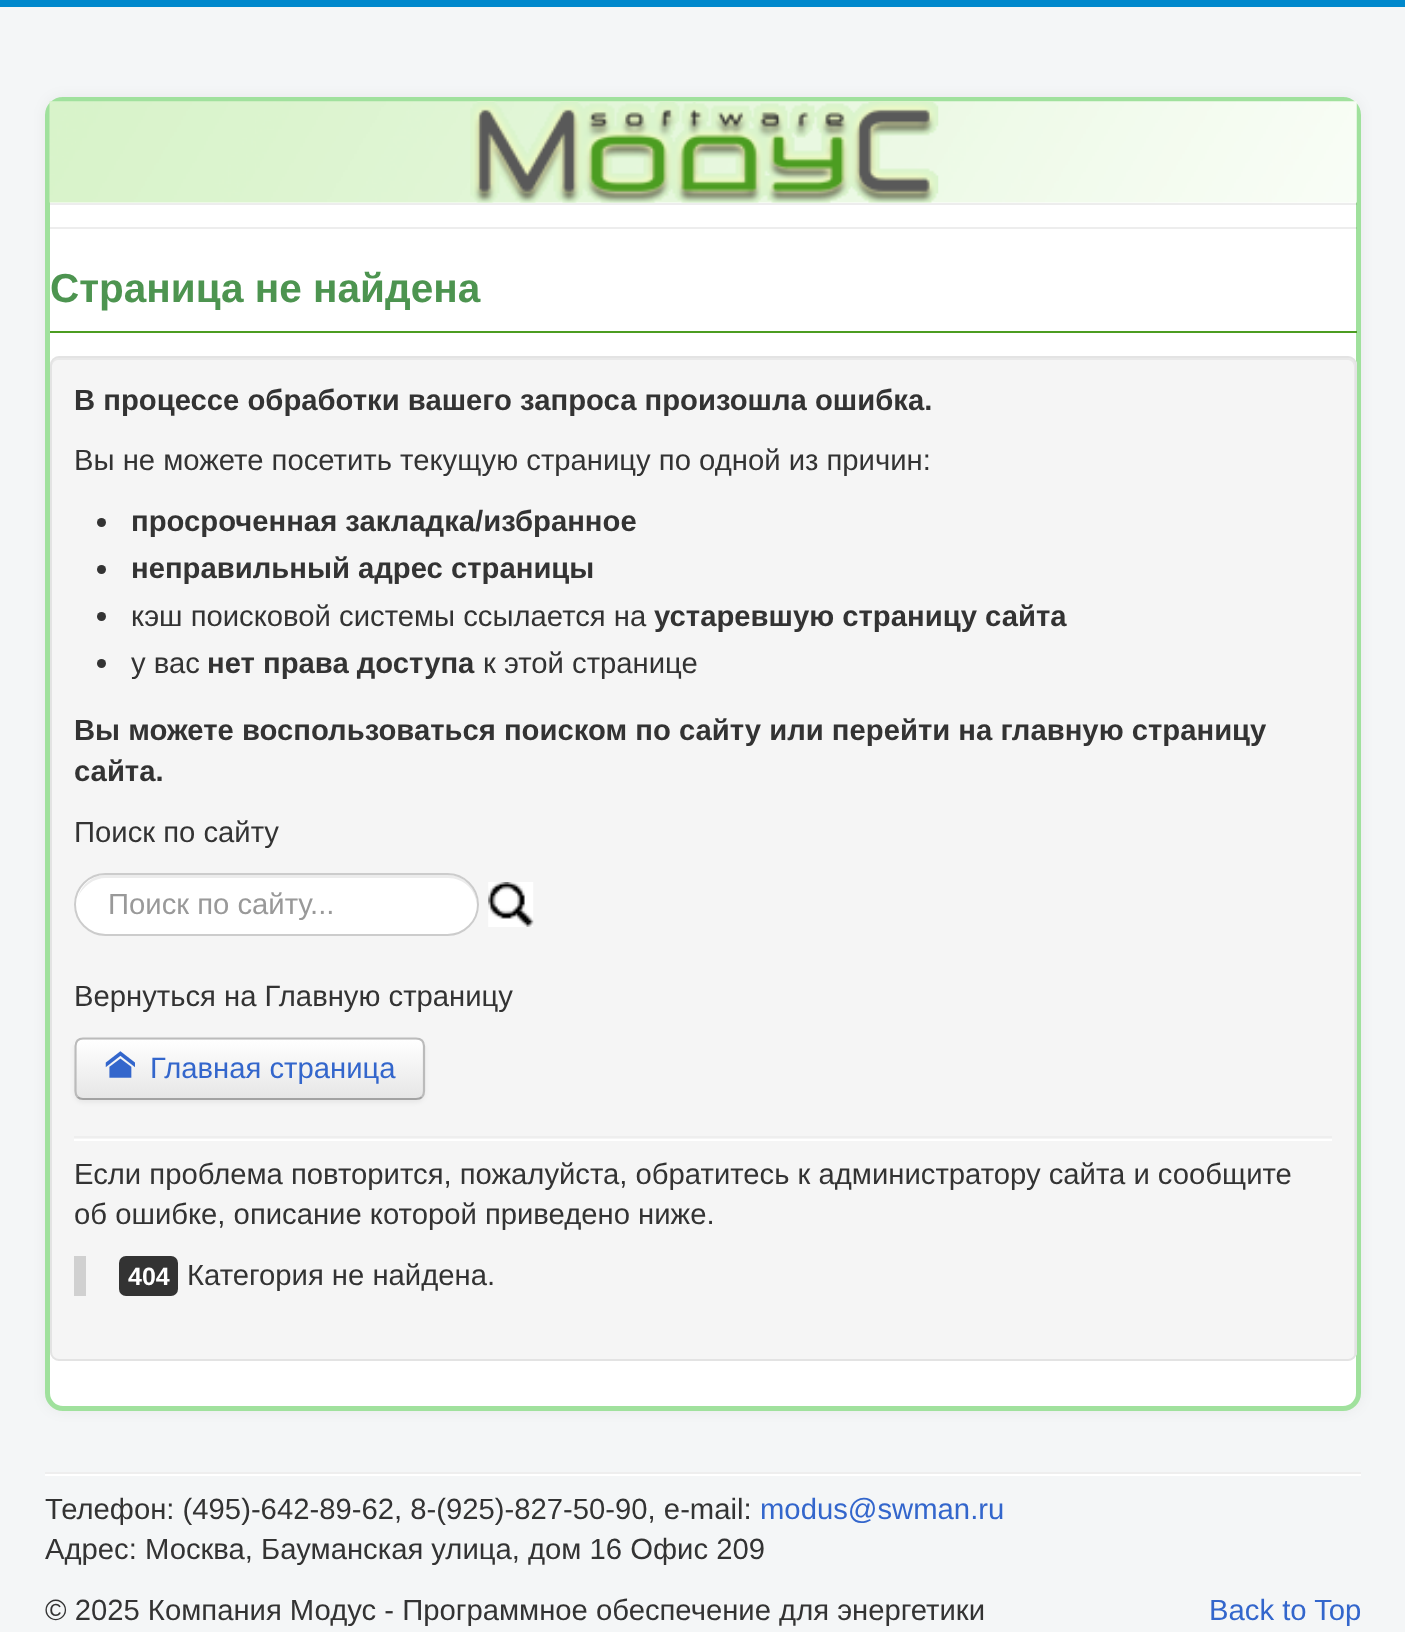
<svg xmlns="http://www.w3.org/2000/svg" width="1405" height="1632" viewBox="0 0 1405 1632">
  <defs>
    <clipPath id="clip1"><rect x="74" y="1037" width="351" height="63" rx="9"/></clipPath>
    <linearGradient id="g1" gradientUnits="userSpaceOnUse" x1="250" y1="1040" x2="250" y2="1098"><stop offset="0" stop-color="#fff"/><stop offset="1" stop-color="#e6e6e6"/></linearGradient>
  </defs>
  <rect width="100%" height="100%" fill="#f4f6f7"/>
  <path d="M0 0h1405v7H0z" fill="#08c"/>
  <rect x="45" y="97" width="1316" height="1314" rx="18" fill="#0000000d" filter="blur(7px)"/>
  <rect x="47.5" y="99.5" width="1311" height="1309" rx="15.5" fill="#fff" stroke="#a0e19d" stroke-width="5"/>
  <image x="49" y="101" width="1308" height="102" href="img/1.png"/>
  <image x="470" y="101" width="469" height="102" href="img/2.png"/>
  <path d="M50 203h1307v2H50z" fill="#00000012"/>
  <path d="M50 227h1307v2H50z" fill="#00000012"/>
  <path d="M50 331h1307v2H50z" fill="#4c9d21"/>
  <rect x="50" y="356" width="1307" height="1005" rx="9" fill="#f5f5f5"/>
  <path d="M58 360H1348C1351 360 1354 363 1354 367V1356C1355 1355 1355 1353 1355 1352V365C1355 361 1352 358 1348 358H59C55 358 52 361 52 365V367C52 363 55 360 58 360Z" fill="#e9e9e9"/>
  <rect x="51" y="357" width="1305" height="1003" rx="8" fill="none" stroke="#e3e3e3" stroke-width="2"/>
  <circle cx="101.5" cy="522.5" r="4.5" fill="#333"/>
  <circle cx="101.5" cy="569.5" r="4.5" fill="#333"/>
  <circle cx="101.5" cy="616.5" r="4.5" fill="#333"/>
  <circle cx="101.5" cy="663.5" r="4.5" fill="#333"/>
  <rect x="74" y="873" width="405" height="63" rx="31.5" fill="#fff"/>
  <path d="M106 878H448C464 878 476 890 477 906V904C477 888 464 875 448 875H106C93 875 82 884 78 897C83 886 94 878 106 878Z" fill="#ececec"/>
  <rect x="75" y="874" width="403" height="61" rx="30.5" fill="none" stroke="#ccc" stroke-width="2"/>
  <image x="488" y="882" width="46" height="45" href="img/3.png"/>
  <rect x="74" y="1040" width="351" height="63" rx="9" fill="#0000000d" filter="blur(2px)"/>
  <rect x="74" y="1037" width="351" height="63" rx="9" fill="#f5f5f5"/>
  <g clip-path="url(#clip1)">
    <path d="M74 1040h351v58H74z" fill="url(#g1)"/>
  </g>
  <path d="M422 1097C420.5 1098.5 418.5 1099 416 1099H83C81 1099 79 1098.5 77.5 1097" fill="none" stroke="#a2a2a2" stroke-width="2.2"/>
  <path d="M77.5 1097C76 1095.5 75.5 1093.5 75.5 1091V1046C75.5 1044 76 1042 77.5 1040.5C79 1039 81 1038.5 83 1038.5H416C418.5 1038.5 420.5 1039 422 1040.5C423.5 1042 424 1044 424 1046V1091C424 1093.5 423.5 1095.5 422 1097" fill="none" stroke="#bbb" stroke-width="2.2"/>
  <image x="105" y="1051" width="30" height="27" href="img/4.png"/>
  <path d="M74 1136h1258v2H74z" fill="#eee"/>
  <path d="M74 1139h1258v2H74z" fill="#fff"/>
  <path d="M74 1256h12v40H74z" fill="#d0d0d0"/>
  <rect x="119" y="1256" width="59" height="40" rx="7" fill="#333"/>
  <path d="M45 1472h1316v2H45z" fill="#eee"/>
  <path d="M45 1474h1316v2H45z" fill="#fff"/>
  <text x="50" y="302" font-family="Liberation Sans" font-size="40.5" font-weight="bold" fill="#4d9450">Страница не найдена</text>
  <text x="74" y="410" font-family="Liberation Sans" font-size="29.25" font-weight="bold" fill="#333">В процессе обработки вашего запроса произошла ошибка.</text>
  <text x="74" y="470" font-family="Liberation Sans" font-size="29.25" fill="#333">Вы не можете посетить текущую страницу по одной из причин:</text>
  <g font-family="Liberation Sans" font-size="29.25" font-weight="bold" fill="#333">
    <text x="131" y="531">просроченная закладка/избранное</text>
    <text x="131" y="578">неправильный адрес страницы</text>
  </g>
  <text x="131" y="626" font-family="Liberation Sans" font-size="29.25" fill="#333">кэш поисковой системы ссылается на</text>
  <text x="654" y="626" font-family="Liberation Sans" font-size="29.25" font-weight="bold" fill="#333">устаревшую страницу сайта</text>
  <text x="131" y="673" font-family="Liberation Sans" font-size="29.25" fill="#333">у вас</text>
  <text x="207" y="673" font-family="Liberation Sans" font-size="29.25" font-weight="bold" fill="#333">нет права доступа</text>
  <text x="483" y="673" font-family="Liberation Sans" font-size="29.25" fill="#333">к этой странице</text>
  <g font-family="Liberation Sans" font-size="29.25" font-weight="bold" fill="#333">
    <text x="74" y="740">Вы можете воспользоваться поиском по сайту или перейти на главную страницу</text>
    <text x="74" y="781">сайта.</text>
  </g>
  <text x="74" y="842" font-family="Liberation Sans" font-size="29.25" fill="#333">Поиск по сайту</text>
  <text x="108" y="914" font-family="Liberation Sans" font-size="29.25" fill="#999">Поиск по сайту...</text>
  <text x="74" y="1006" font-family="Liberation Sans" font-size="29.25" fill="#333">Вернуться на Главную страницу</text>
  <text x="150" y="1078" font-family="Liberation Sans" font-size="29.25" fill="#36c">Главная страница</text>
  <g font-family="Liberation Sans" font-size="29.25" fill="#333">
    <text x="74" y="1184">Если проблема повторится, пожалуйста, обратитесь к администратору сайта и сообщите</text>
    <text x="74" y="1224">об ошибке, описание которой приведено ниже.</text>
  </g>
  <text x="128" y="1285" font-family="Liberation Sans" font-size="25" font-weight="bold" fill="#fff">404</text>
  <g font-family="Liberation Sans" font-size="29.25" fill="#333">
    <text x="187" y="1285">Категория не найдена.</text>
    <text x="45" y="1519">Телефон: (495)-642-89-62, 8-(925)-827-50-90, e-mail:</text>
  </g>
  <text x="760" y="1519" font-family="Liberation Sans" font-size="29.25" fill="#36c">modus@swman.ru</text>
  <g font-family="Liberation Sans" font-size="29.25" fill="#333">
    <text x="45" y="1559">Адрес: Москва, Бауманская улица, дом 16 Офис 209</text>
    <text x="45" y="1620">© 2025 Компания Модус - Программное обеспечение для энергетики</text>
  </g>
  <text x="1209" y="1620" font-family="Liberation Sans" font-size="29.25" fill="#36c">Back to Top</text>
</svg>
